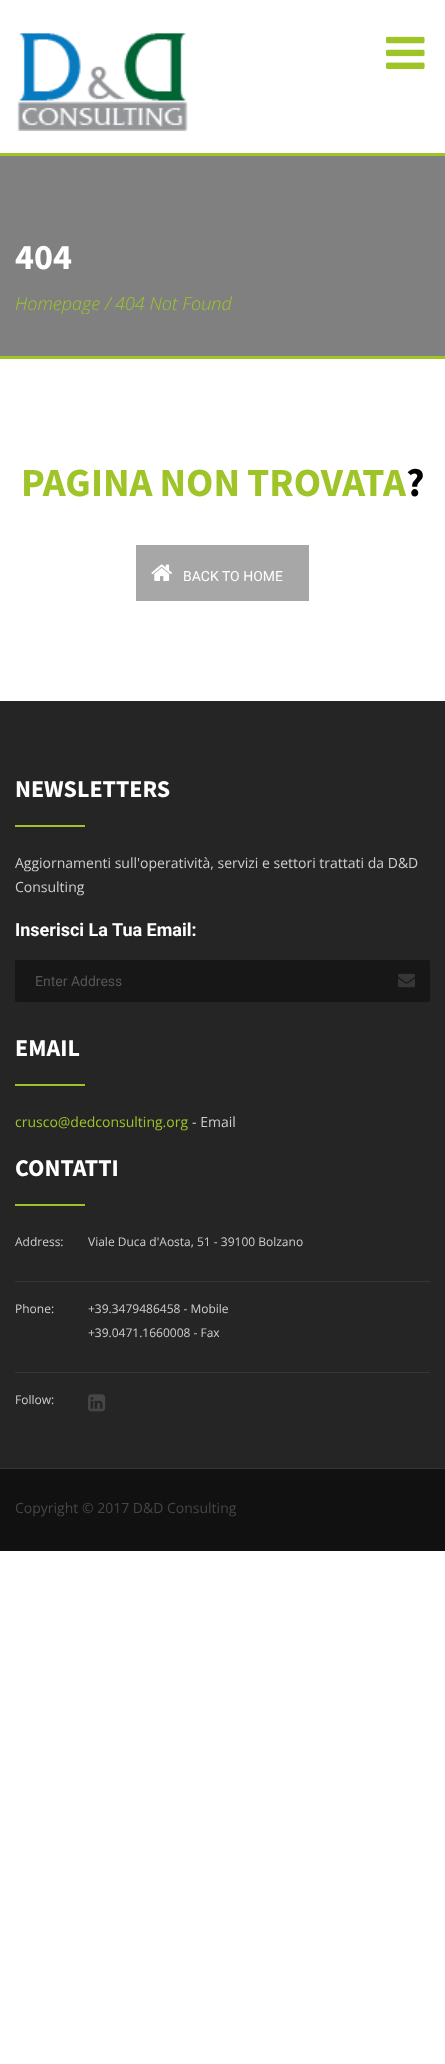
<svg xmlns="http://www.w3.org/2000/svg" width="445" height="2064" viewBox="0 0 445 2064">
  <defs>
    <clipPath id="clip1"><path d="M15 292h228v22H15z"/></clipPath>
  </defs>
  <rect width="100%" height="100%" fill="#fff"/>
  <path d="M0 153h445v3H0z" fill="#9ec428"/>
  <image x="17" y="33" width="171" height="98" href="img/1.png"/>
  <image x="386" y="36" width="39" height="33" href="img/2.png"/>
  <path d="M0 356h445v3H0z" fill="#9ec428"/>
  <path d="M0 156h445v200H0z" fill="#808080"/>
  <path d="M136 545h173v56H136z" fill="#a7a7a7"/>
  <image x="151" y="564" width="21" height="17" href="img/3.png"/>
  <path d="M0 701h445v767H0z" fill="#252525"/>
  <path d="M15 825h70v2H15z" fill="#9ec428"/>
  <rect x="15" y="960" width="415" height="42" rx="2" fill="#171717"/>
  <image x="398" y="973" width="17" height="15" href="img/4.png"/>
  <path d="M15 1084h70v2H15z" fill="#9ec428"/>
  <path d="M15 1204h70v2H15z" fill="#9ec428"/>
  <path d="M15 1281h415v1H15z" fill="#363636"/>
  <path d="M15 1372h415v1H15z" fill="#363636"/>
  <image x="88" y="1394" width="18" height="18" href="img/5.png"/>
  <path d="M0 1469h445v82H0z" fill="#111"/>
  <path d="M0 1468h445v1H0z" fill="#343434"/>
  <text x="15" y="269" font-family="Source Sans Pro" font-size="36" font-weight="bold" fill="#fff">404</text>
  <g clip-path="url(#clip1)">
    <text x="15" y="310" font-family="Open Sans" font-size="18" font-weight="300" font-style="italic" fill="#9ec428">Homepage</text>
  </g>
  <g font-family="Open Sans" font-size="18" font-weight="300" font-style="italic" fill="#9ec428">
    <text x="105" y="310">/</text>
    <text x="115" y="310">404 Not Found</text>
  </g>
  <text x="21" y="496" word-spacing="-1" font-family="Source Sans Pro" font-size="40" font-weight="bold" fill="#9ec428">PAGINA NON TROVATA</text>
  <text x="406" y="496" font-family="Source Sans Pro" font-size="40" font-weight="bold" fill="#000">?</text>
  <text x="183" y="581" font-family="Roboto" font-size="14" fill="#fff">BACK TO HOME</text>
  <text x="15" y="797" font-family="Source Sans Pro" font-size="24" font-weight="bold" fill="#fff">NEWSLETTERS</text>
  <g font-family="Open Sans" font-size="14" fill="#cecece">
    <text x="15" y="868">Aggiornamenti sull'operatività, servizi e settori trattati da D&amp;D</text>
    <text x="15" y="892">Consulting</text>
  </g>
  <text x="15" y="936" font-family="Roboto" font-size="18" font-weight="bold" fill="#fff">Inserisci La Tua Email:</text>
  <text x="35" y="986" font-family="Roboto" font-size="14" fill="#555">Enter Address</text>
  <text x="15" y="1056" font-family="Source Sans Pro" font-size="24" font-weight="bold" fill="#fff">EMAIL</text>
  <text x="15" y="1127" font-family="Open Sans" font-size="14" fill="#9ec428">crusco@dedconsulting.org</text>
  <text x="192" y="1127" font-family="Open Sans" font-size="14" fill="#cecece">- Email</text>
  <text x="15" y="1176" font-family="Source Sans Pro" font-size="24" font-weight="bold" fill="#fff">CONTATTI</text>
  <g font-family="Open Sans" font-size="12" fill="#cecece">
    <text x="15" y="1246">Address:</text>
    <text x="88" y="1246">Viale Duca d'Aosta, 51 - 39100 Bolzano</text>
    <text x="15" y="1313">Phone:</text>
    <text x="88" y="1313">+39.3479486458 - Mobile</text>
    <text x="88" y="1337">+39.0471.1660008 - Fax</text>
    <text x="15" y="1404">Follow:</text>
  </g>
  <text x="15" y="1513" font-family="Open Sans" font-size="14" fill="#464646">Copyright © 2017 D&amp;D Consulting</text>
</svg>
